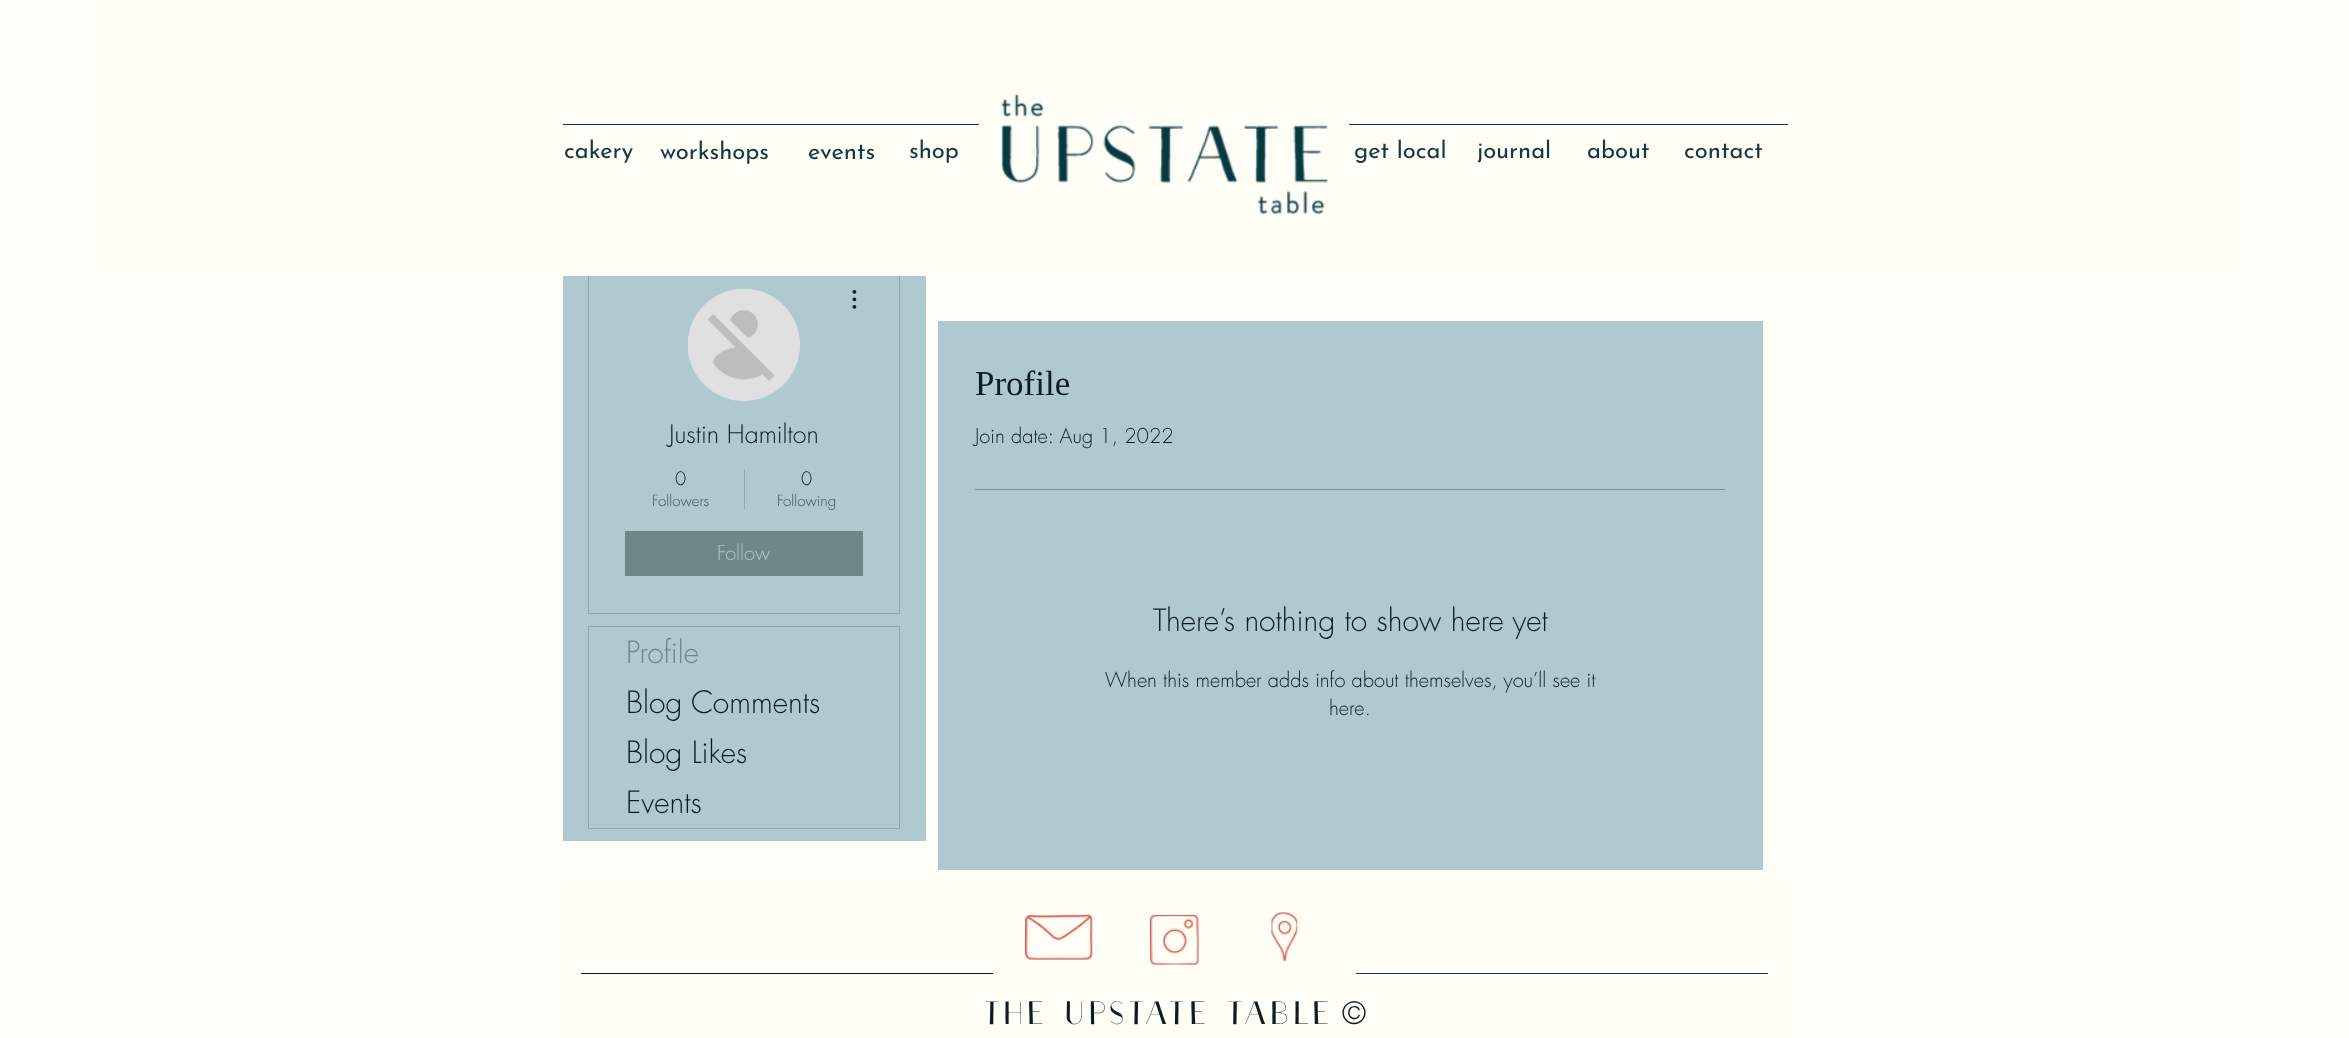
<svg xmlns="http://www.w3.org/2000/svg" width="2349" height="1038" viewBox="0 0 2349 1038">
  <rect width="100%" height="100%" fill="#fffef9"/>
  <path d="M563 276h363v565H563z" fill="#aec9cf"/>
  <path d="M588.5 251.5h311v362H588.5z" fill="none" stroke="#8ea6ac"/>
  <path d="M88 0h2150v276H88z" fill="#fefdf6"/>
  <path d="M563 124h416v1H563z" fill="#17383f"/>
  <image x="1001" y="94" width="328" height="120" href="img/1.png"/>
  <path d="M1349 124h439v1H1349z" fill="#17383f"/>
  <circle cx="744" cy="345" r="56" fill="#d8d8d8"/>
  <image x="687" y="288" width="113" height="113" href="img/2.png"/>
  <image x="852" y="290" width="5" height="19" href="img/3.png"/>
  <path d="M744 469h1v40H744z" fill="#8ea6ac"/>
  <path d="M625 531h238v45H625z" fill="#6c8888"/>
  <path d="M588.5 626.5h311v202H588.5z" fill="none" stroke="#8ea6ac"/>
  <path d="M938 321h825v549H938z" fill="#aec9cf"/>
  <path d="M975 489h750v1H975z" fill="#7d959b"/>
  <path d="M563 871h1225v167H563z" fill="#fefdf6"/>
  <image x="1025" y="914" width="68" height="46" href="img/4.png"/>
  <image x="1150" y="914" width="49" height="51" href="img/5.png"/>
  <image x="1271" y="912" width="27" height="49" href="img/6.png"/>
  <path d="M581 973h412v1H581z" fill="#0c1c20"/>
  <path d="M1356 973h412v1H1356z" fill="#17383f"/>
  <g font-family="Josefin Sans" font-size="23.75" fill="#17383f">
    <text x="564" y="158">cakery</text>
    <text x="660" y="159">workshops</text>
    <text x="808" y="159">events</text>
    <text x="909" y="158">shop</text>
    <text x="1354" y="158">get local</text>
    <text x="1477" y="158">journal</text>
    <text x="1587" y="158">about</text>
    <text x="1684" y="158">contact</text>
  </g>
  <text x="669" y="443" font-family="futura" font-size="25" font-weight="300" fill="#0c1c20">Justin Hamilton</text>
  <text x="675" y="485" font-family="futura" font-size="18" font-weight="300" fill="#0c1c20">0</text>
  <text x="652" y="506" font-family="futura" font-size="15" font-weight="300" fill="#3d5055">Followers</text>
  <text x="801" y="485" font-family="futura" font-size="18" font-weight="300" fill="#0c1c20">0</text>
  <text x="777" y="506" font-family="futura" font-size="15" font-weight="300" fill="#3d5055">Following</text>
  <text x="717" y="560" font-family="futura" font-size="20" font-weight="300" fill="#aec9cf">Follow</text>
  <text x="626" y="663" font-family="futura" font-size="30" font-weight="300" fill="#6c8888">Profile</text>
  <g font-family="futura" font-size="30" font-weight="300" fill="#0c1c20">
    <text x="626" y="713">Blog Comments</text>
    <text x="626" y="763">Blog Likes</text>
    <text x="626" y="813">Events</text>
  </g>
  <text x="975" y="395" font-family="Liberation Serif" font-size="35" fill="#0c1c20">Profile</text>
  <text x="975" y="443" font-family="futura" font-size="20" font-weight="300" fill="#0c1c20">Join date: Aug 1, 2022</text>
  <text x="1153" y="631" font-family="futura" font-size="30" font-weight="300" fill="#0c1c20">There’s nothing to show here yet</text>
  <g font-family="futura" font-size="20" font-weight="300" fill="#0c1c20">
    <text x="1105" y="687">When this member adds info about themselves, you’ll see it</text>
    <text x="1329" y="715">here.</text>
  </g>
  <text x="983" y="1024" font-family="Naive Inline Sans" font-size="30" font-weight="300" letter-spacing="3" fill="#0c1c20">THE UPSTATE TABLE</text>
  <text x="1342" y="1024" font-family="futura" font-size="30" font-weight="300" fill="#0c1c20">©</text>
</svg>
